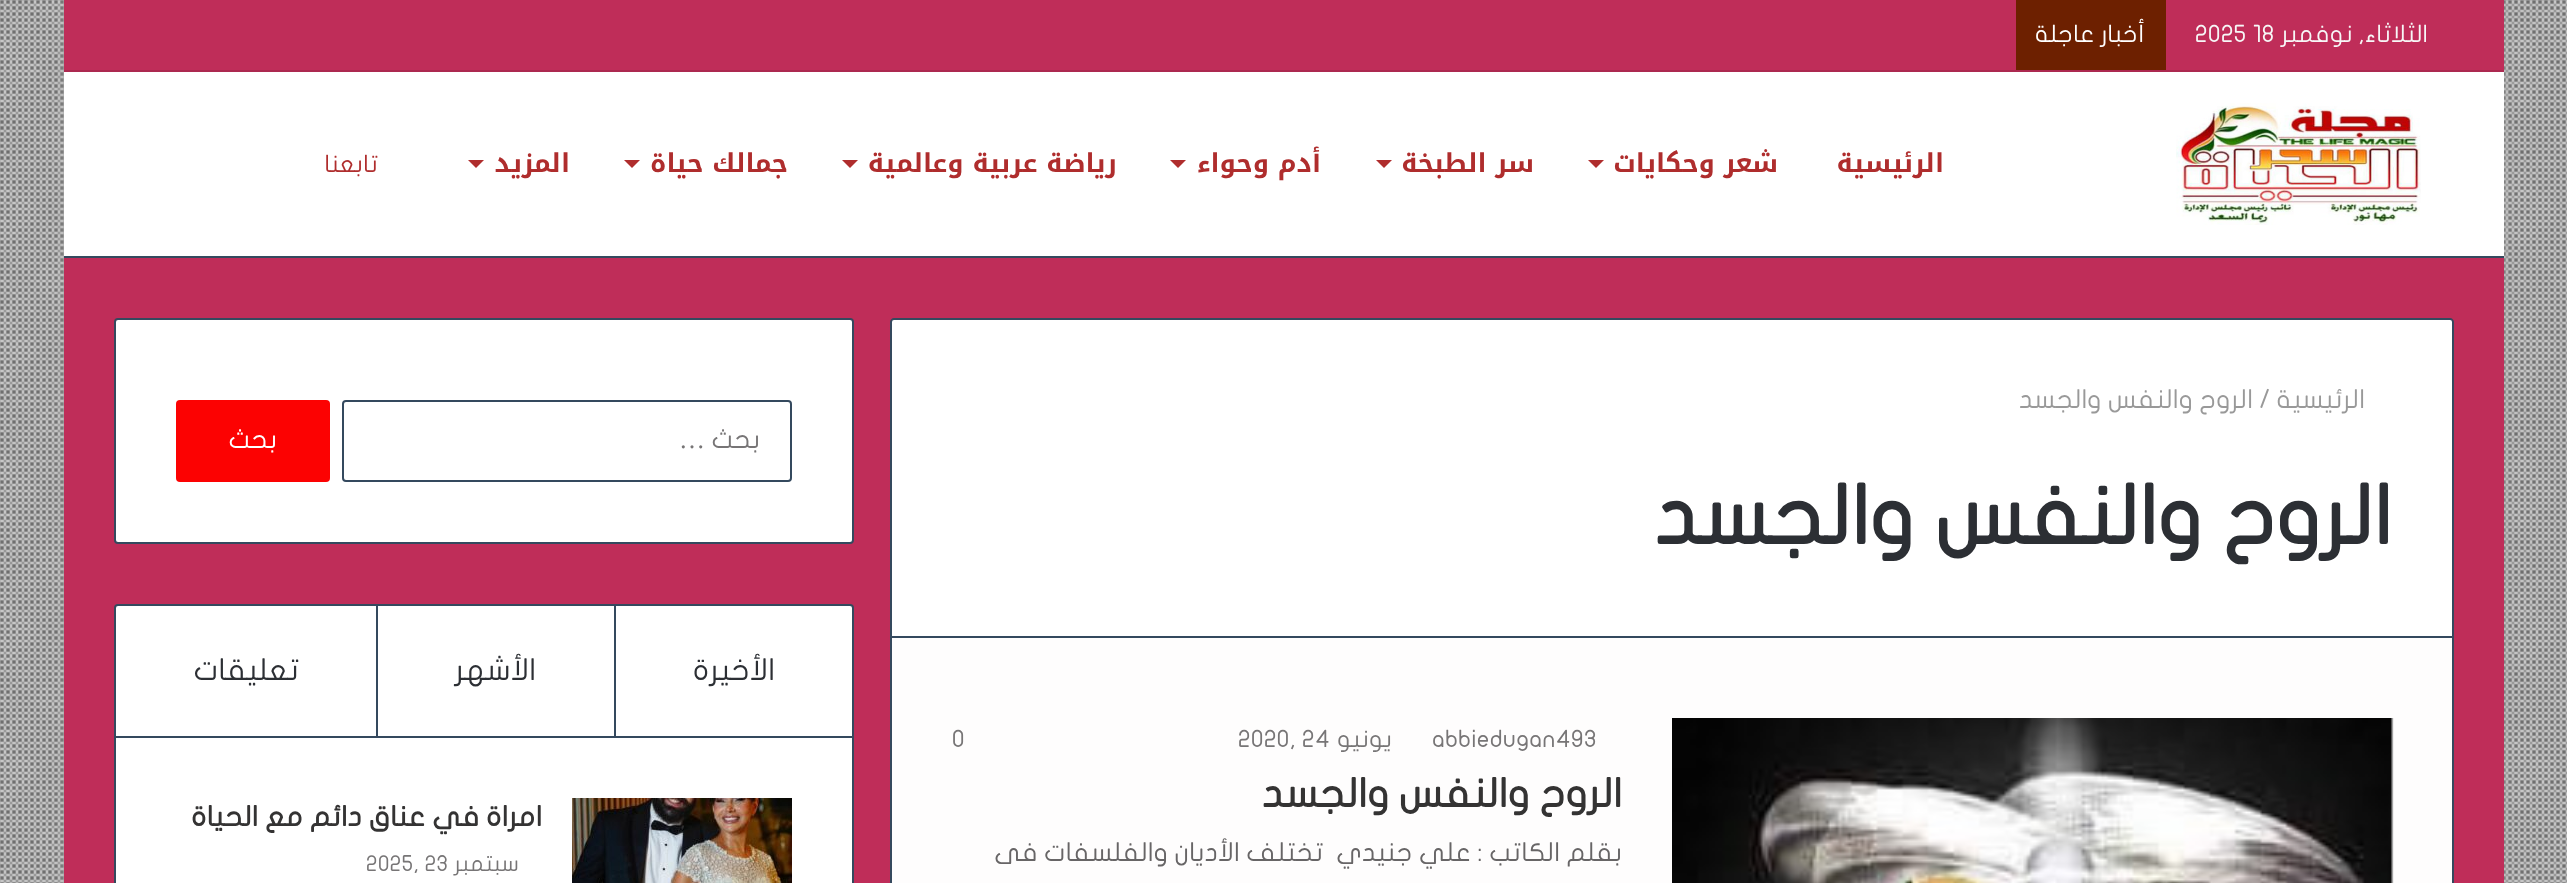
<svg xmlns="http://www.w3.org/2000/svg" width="2567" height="883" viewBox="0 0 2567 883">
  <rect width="100%" height="100%" fill="#fff"/>
  <image x="0" y="0" width="2567" height="883" href="img/1.png"/>
  <image x="0" y="0" width="2567" height="883" href="img/2.png"/>
  <path d="M64 2h2440v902H64z" fill="#ababab80" filter="blur(7px)"/>
  <path d="M64 258h2440v625H64z" fill="#bf2d59"/>
  <path d="M64 0h2440v70H64z" fill="#bf2d59"/>
  <path d="M64 70h2440v2H64z" fill="#ac2950"/>
  <path d="M2016 0h150v70H2016z" fill="#6d2000"/>
  <path d="M64 72h2440v184H64z" fill="#fff"/>
  <path d="M64 256h2440v2H64z" fill="#34495e"/>
  <image x="2176" y="103" width="245" height="122" href="img/3.png"/>
  <path d="M1588 160H1604L1596 168Z" fill="#af2d2d"/>
  <path d="M1376 160H1392L1384 168Z" fill="#af2d2d"/>
  <path d="M1170 160H1186L1178 168Z" fill="#af2d2d"/>
  <path d="M842 160H858L850 168Z" fill="#af2d2d"/>
  <path d="M624 160H640L632 168Z" fill="#af2d2d"/>
  <path d="M468 160H484L476 168Z" fill="#af2d2d"/>
  <path d="M894 319H2450C2451.5 319 2453 320.5 2453 322V637H891V322C891 320.5 892.5 319 894 319Z" fill="#fff" stroke="#34495e" stroke-width="2"/>
  <path d="M892 638h1560v245H892z" fill="#fefdfd"/>
  <path d="M2452 638h2v245H2452z" fill="#35495e"/>
  <path d="M890 638h2v245H890z" fill="#35495e"/>
  <image x="1672" y="718" width="722" height="165" href="img/4.png"/>
  <rect x="115" y="319" width="738" height="224" rx="3" fill="#fff" stroke="#34495e" stroke-width="2"/>
  <rect x="343" y="401" width="448" height="80" rx="3" fill="none" stroke="#34495e" stroke-width="2"/>
  <rect x="176" y="400" width="154" height="82" rx="4" fill="#fc0202"/>
  <rect x="115" y="605" width="738" height="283" rx="3" fill="#fff" stroke="#34495e" stroke-width="2"/>
  <path d="M116 736h736v2H116z" fill="#34495e"/>
  <path d="M614 738V606H616V736Z" fill="#34495e"/>
  <path d="M376 738V606H378V736Z" fill="#34495e"/>
  <image x="572" y="798" width="220" height="85" href="img/5.png"/>
  <text x="2428" y="42" font-family="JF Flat" font-size="24" direction="rtl" fill="#f7f7f7">الثلاثاء, نوفمبر</text>
  <text x="2195" y="42" font-family="JF Flat" font-size="24" fill="#f7f7f7">2025 18</text>
  <text x="2145" y="42" font-family="JF Flat" font-size="24" direction="rtl" fill="#fff">أخبار عاجلة</text>
  <g font-family="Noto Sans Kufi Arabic" font-size="26" font-weight="bold" direction="rtl" fill="#af2d2d">
    <text x="1944" y="172">الرئيسية</text>
    <text x="1778" y="172">شعر وحكايات</text>
    <text x="1534" y="172">سر الطبخة</text>
    <text x="1321" y="172">أدم وحواء</text>
    <text x="1117" y="172">رياضة عربية وعالمية</text>
    <text x="788" y="172">جمالك حياة</text>
    <text x="570" y="172">المزيد</text>
  </g>
  <text x="378" y="172" font-family="JF Flat" font-size="24" direction="rtl" fill="#af2d2d">تابعنا</text>
  <text x="2365" y="408" font-family="JF Flat" font-size="26" direction="rtl" fill="#999">الرئيسية</text>
  <text x="2259" y="408" font-family="JF Flat" font-size="26" fill="#999">/</text>
  <text x="2253" y="408" font-family="JF Flat" font-size="26" direction="rtl" fill="#999">الروح والنفس والجسد</text>
  <text x="2392" y="544" font-family="JF Flat" font-size="82" font-weight="bold" direction="rtl" fill="#2c2f34">الروح والنفس والجسد</text>
  <text x="1432" y="747" font-family="JF Flat" font-size="24" fill="#777576">abbiedugan493</text>
  <text x="1392" y="747" font-family="JF Flat" font-size="24" direction="rtl" fill="#777576">يونيو</text>
  <g font-family="JF Flat" font-size="24" fill="#777576">
    <text x="1238" y="747">2020, 24</text>
    <text x="952" y="747">0</text>
  </g>
  <text x="1622" y="807" font-family="JF Flat" font-size="40" font-weight="bold" direction="rtl" fill="#343333">الروح والنفس والجسد</text>
  <text x="1622" y="861" font-family="JF Flat" font-size="26" direction="rtl" fill="#676566" xml:space="preserve">بقلم الكاتب : علي جنيدي  تختلف الأديان والفلسفات فى</text>
  <text x="760" y="448" font-family="JF Flat" font-size="26" direction="rtl" fill="#777576">بحث</text>
  <text x="705" y="448" font-family="Liberation Serif" font-size="26" direction="rtl" fill="#777576">…</text>
  <text x="277" y="448" font-family="JF Flat" font-size="26" direction="rtl" fill="#fff">بحث</text>
  <g font-family="JF Flat" font-size="30" direction="rtl" fill="#2c2f34">
    <text x="775" y="680">الأخيرة</text>
    <text x="536" y="680">الأشهر</text>
    <text x="299" y="680">تعليقات</text>
  </g>
  <text x="542" y="826" font-family="JF Flat" font-size="28" font-weight="bold" direction="rtl" fill="#343333">امراة في عناق دائم مع الحياة</text>
  <text x="519" y="871" font-family="JF Flat" font-size="22" direction="rtl" fill="#777576">سبتمبر</text>
  <text x="366" y="871" font-family="JF Flat" font-size="22" fill="#777576">2025, 23</text>
</svg>
